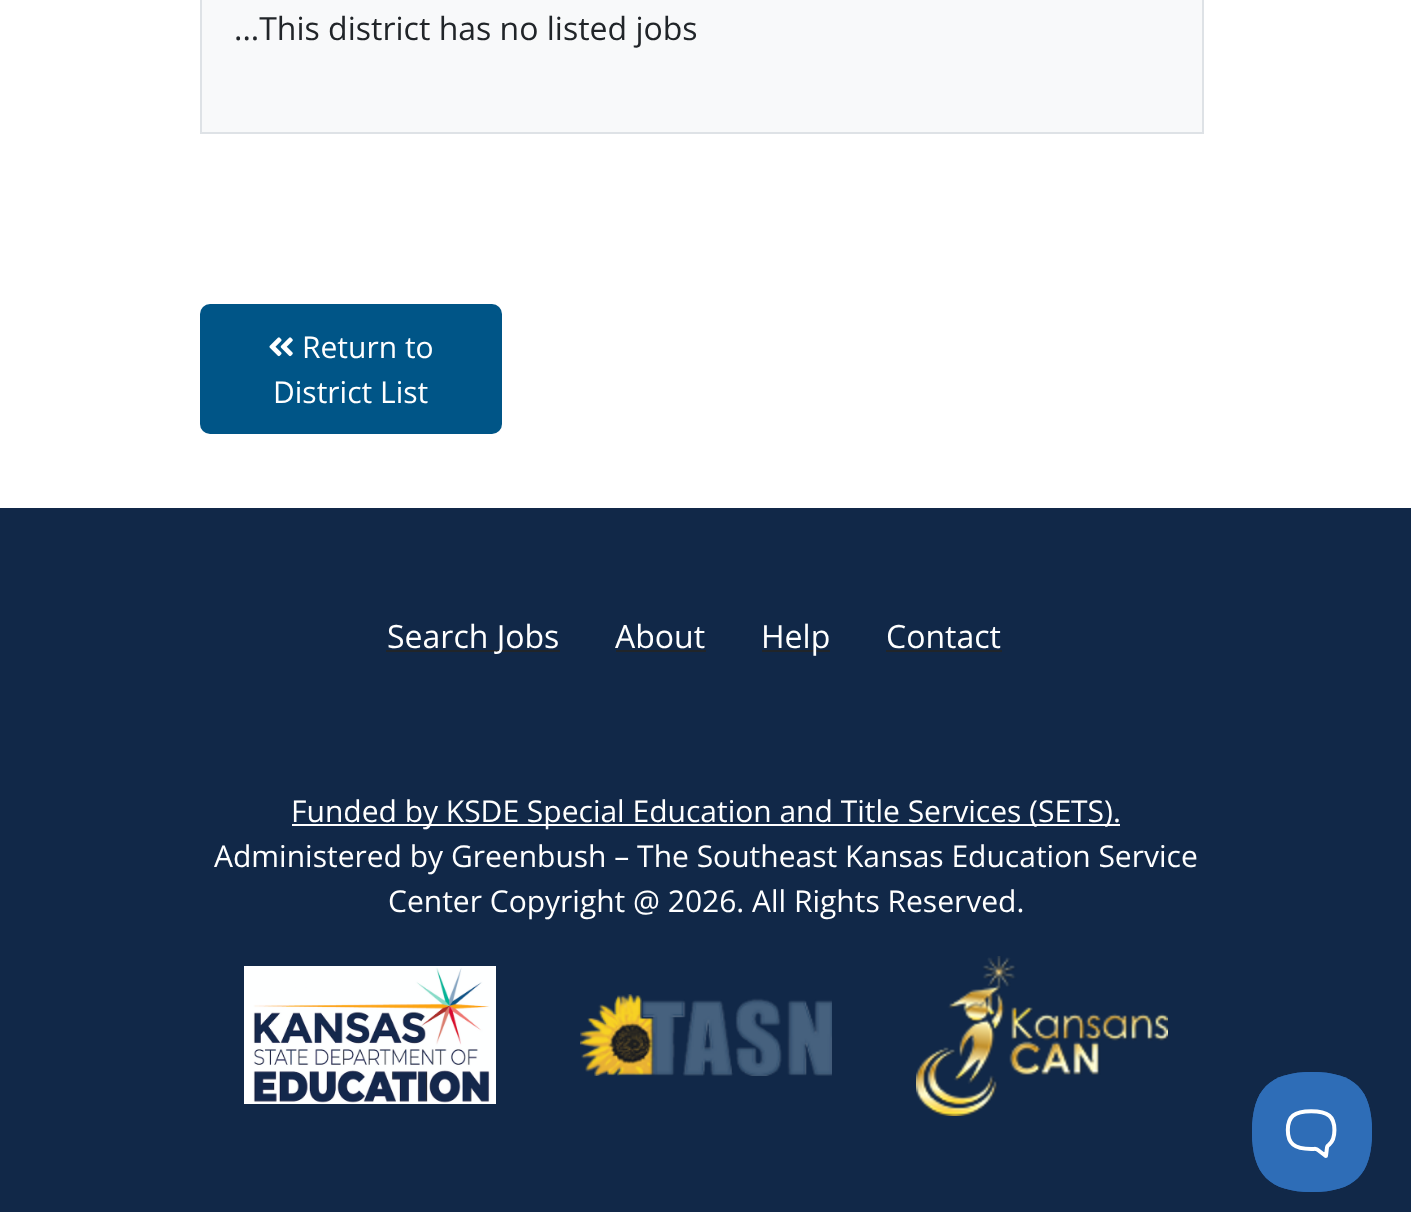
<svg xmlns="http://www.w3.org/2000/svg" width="1411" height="1212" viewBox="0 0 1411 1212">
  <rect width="100%" height="100%" fill="#fff"/>
  <path d="M201 -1h1002v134H201z" fill="#f8f9fa" stroke="#dee2e6" stroke-width="2"/>
  <rect x="200" y="304" width="302" height="130" rx="10" fill="#005587"/>
  <image x="269" y="337" width="24" height="20" href="img/1.png"/>
  <path d="M0 508h1411v704H0z" fill="#112848"/>
  <path d="M386 650h174v2H386z" fill="#212529"/>
  <path d="M616 650h90v2H616z" fill="#212529"/>
  <path d="M762 650h68v2H762z" fill="#212529"/>
  <path d="M886 650h116v2H886z" fill="#212529"/>
  <path d="M292 824h828v2H292z" fill="#fff"/>
  <image x="244" y="966" width="252" height="138" href="img/2.png"/>
  <image x="580" y="994" width="252" height="82" href="img/3.png"/>
  <image x="916" y="956" width="252" height="160" href="img/4.png"/>
  <image x="1252" y="1072" width="120" height="120" href="img/5.png"/>
  <text x="234" y="40" font-family="Open Sans" font-size="32" fill="#212529">...This district has no listed jobs</text>
  <g font-family="Open Sans" font-size="30" fill="#fff">
    <text x="302" y="358">Return to</text>
    <text x="273" y="403">District List</text>
  </g>
  <g font-family="Open Sans" font-size="32" fill="#fff">
    <text x="387" y="648">Search Jobs</text>
    <text x="615" y="648">About</text>
    <text x="761" y="648">Help</text>
    <text x="886" y="648">Contact</text>
  </g>
  <g font-family="Open Sans" font-size="30" fill="#fff">
    <text x="291" y="822">Funded by KSDE Special Education and Title Services (SETS).</text>
    <text x="214" y="867">Administered by Greenbush – The Southeast Kansas Education Service</text>
    <text x="388" y="912">Center Copyright @ 2026. All Rights Reserved.</text>
  </g>
</svg>
